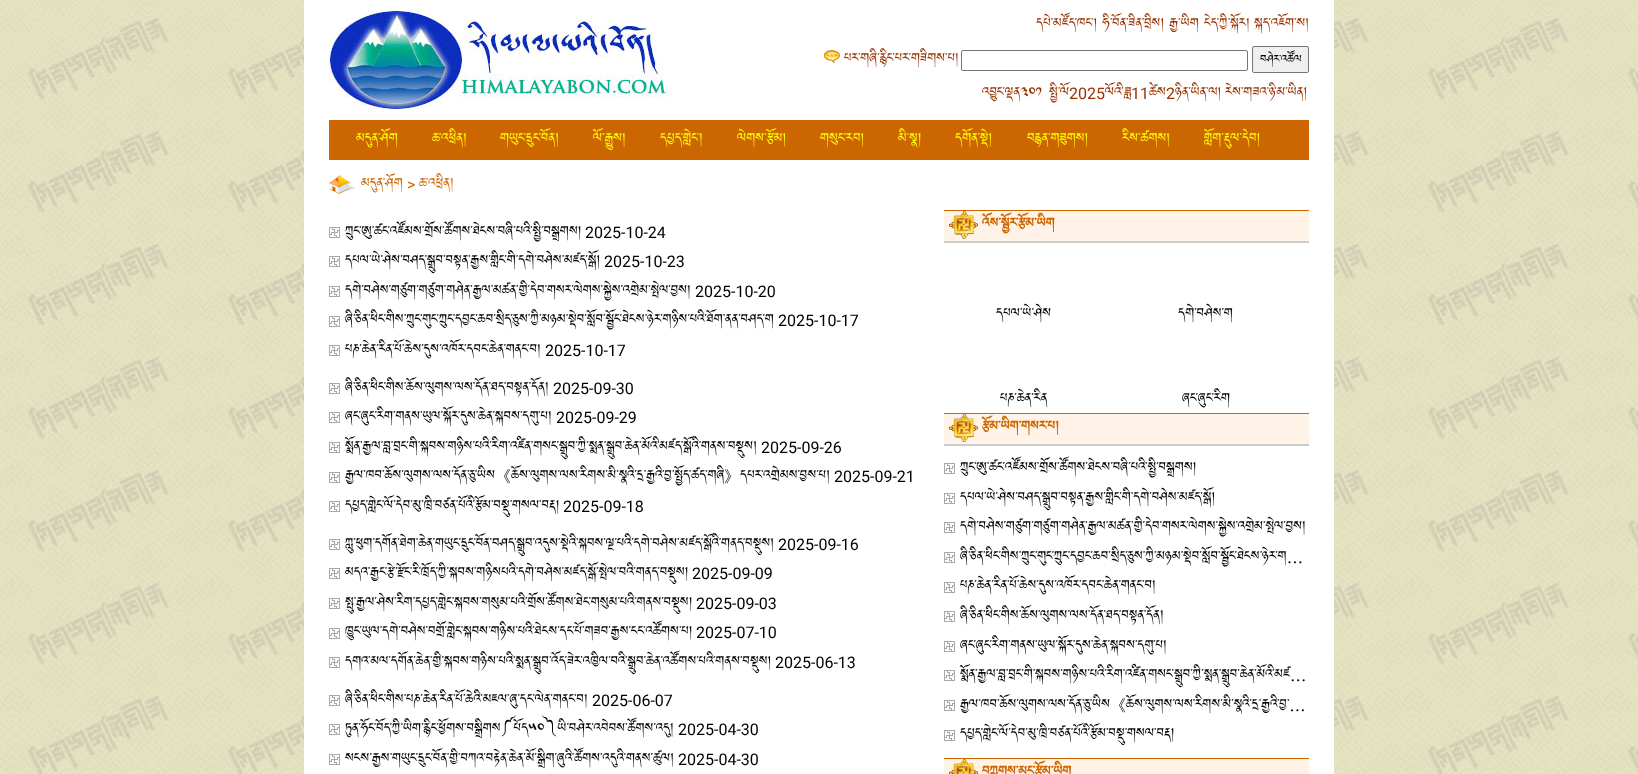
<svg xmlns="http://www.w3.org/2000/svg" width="1638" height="774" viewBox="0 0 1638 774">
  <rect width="100%" height="100%" fill="#fff"/>
  <image x="0" y="0" width="1638" height="774" href="img/1.png"/>
  <path d="M304 0h1030v774H304z" fill="#fff"/>
  <image x="329" y="10" width="343" height="100" href="img/2.png"/>
  <image x="824" y="50" width="16" height="13" href="img/3.png"/>
  <rect x="961.5" y="50.5" width="286" height="20" rx="1.5" fill="none" stroke="#767676"/>
  <rect x="1252.5" y="46.5" width="56" height="26" rx="1.5" fill="#efefef" stroke="#767676"/>
  <path d="M329 120h980v40H329z" fill="#c60"/>
  <image x="329" y="175" width="26" height="19" href="img/4.png"/>
  <image x="329" y="227" width="11" height="11" href="img/5.png"/>
  <image x="329" y="256" width="11" height="11" href="img/5.png"/>
  <image x="329" y="286" width="11" height="11" href="img/5.png"/>
  <image x="329" y="316" width="11" height="11" href="img/5.png"/>
  <image x="329" y="345" width="11" height="11" href="img/5.png"/>
  <image x="329" y="383" width="11" height="11" href="img/5.png"/>
  <image x="329" y="412" width="11" height="11" href="img/5.png"/>
  <image x="329" y="442" width="11" height="11" href="img/5.png"/>
  <image x="329" y="472" width="11" height="11" href="img/5.png"/>
  <image x="329" y="501" width="11" height="11" href="img/5.png"/>
  <image x="329" y="539" width="11" height="11" href="img/5.png"/>
  <image x="329" y="568" width="11" height="11" href="img/5.png"/>
  <image x="329" y="598" width="11" height="11" href="img/5.png"/>
  <image x="329" y="628" width="11" height="11" href="img/5.png"/>
  <image x="329" y="657" width="11" height="11" href="img/5.png"/>
  <image x="329" y="695" width="11" height="11" href="img/5.png"/>
  <image x="329" y="724" width="11" height="11" href="img/5.png"/>
  <image x="329" y="754" width="11" height="11" href="img/5.png"/>
  <path d="M944 211h365v30H944z" fill="#fff3e8"/>
  <path d="M944 210h365v1H944z" fill="#c60"/>
  <path d="M944 241h365v2H944z" fill="#ccc"/>
  <image x="949" y="211" width="29" height="28" href="img/6.png"/>
  <path d="M944 414h365v30H944z" fill="#fff3e8"/>
  <path d="M944 413h365v1H944z" fill="#c60"/>
  <path d="M944 444h365v2H944z" fill="#ccc"/>
  <image x="949" y="414" width="29" height="28" href="img/6.png"/>
  <image x="944" y="463" width="11" height="11" href="img/5.png"/>
  <image x="944" y="493" width="11" height="11" href="img/5.png"/>
  <image x="944" y="522" width="11" height="11" href="img/5.png"/>
  <image x="944" y="552" width="11" height="11" href="img/5.png"/>
  <image x="944" y="582" width="11" height="11" href="img/5.png"/>
  <image x="944" y="611" width="11" height="11" href="img/5.png"/>
  <image x="944" y="641" width="11" height="11" href="img/5.png"/>
  <image x="944" y="670" width="11" height="11" href="img/5.png"/>
  <image x="944" y="700" width="11" height="11" href="img/5.png"/>
  <image x="944" y="730" width="11" height="11" href="img/5.png"/>
  <path d="M944 759h365v15H944z" fill="#fff3e8"/>
  <path d="M944 758h365v1H944z" fill="#c60"/>
  <image x="949" y="759" width="29" height="15" href="img/7.png"/>
  <g font-family="Jomolhari" font-size="16" fill="#930">
    <text x="1036" y="30">དཔེ་མཛོད་ཁང་།</text>
    <text x="1102" y="30">ཧི་བོན་ཟིན་བྲིས།</text>
    <text x="1169" y="30">རྒྱ་ཡིག</text>
    <text x="1204" y="30">ངེད་ཀྱི་སྐོར།</text>
    <text x="1254" y="30">སྐད་འཇོག་ས།</text>
    <text x="844" y="65">པར་གཞི་རྙིང་པར་གཟིགས་པ།</text>
  </g>
  <text x="1260" y="65" font-family="Jomolhari" font-size="13.5" fill="#000">བཤེར་འཚོལ</text>
  <g font-family="Jomolhari" font-size="16" fill="#930">
    <text x="982" y="99">འབྱུང་ལྡན༣༠༡</text>
    <text x="1049" y="99">སྤྱི་ལོ</text>
  </g>
  <text x="1069" y="99" font-family="Roboto" font-size="16" fill="#930">2025</text>
  <text x="1105" y="99" font-family="Jomolhari" font-size="16" fill="#930">ལོའི་ཟླ</text>
  <text x="1131" y="99" font-family="Roboto" font-size="16" fill="#930">11</text>
  <text x="1149" y="99" font-family="Jomolhari" font-size="16" fill="#930">ཚེས</text>
  <text x="1166" y="99" font-family="Roboto" font-size="16" fill="#930">2</text>
  <text x="1175" y="99" word-spacing="-1" font-family="Jomolhari" font-size="16" fill="#930">ཉིན་ཡིན་ལ། རེས་གཟའ་ཉི་མ་ཡིན།</text>
  <g font-family="Jomolhari" font-size="16" fill="#ff0">
    <text x="356" y="145">མདུན་ཤོག</text>
    <text x="432" y="145">ཆ་འཕྲིན།</text>
    <text x="500" y="145">གཡུང་དྲུང་བོན།</text>
    <text x="593" y="145">ལོ་རྒྱུས།</text>
    <text x="660" y="145">དཔྱད་གླེང་།</text>
    <text x="737" y="145">ལེགས་རྩོམ།</text>
    <text x="820" y="145">གསུང་རབ།</text>
    <text x="898" y="145">མི་སྣ།</text>
    <text x="955" y="145">དགོན་སྡེ།</text>
    <text x="1027" y="145">བརྙན་གཟུགས།</text>
    <text x="1122" y="145">རིས་ཚགས།</text>
    <text x="1204" y="145">གློག་རྡུལ་དེབ།</text>
  </g>
  <text x="361" y="190" font-family="Jomolhari" font-size="16" fill="#c60">མདུན་ཤོག</text>
  <text x="407" y="190" font-family="Roboto" font-size="16" fill="#c60">&gt;</text>
  <text x="419" y="190" font-family="Jomolhari" font-size="16" fill="#c60">ཆ་འཕྲིན།</text>
  <text x="345" y="238" font-family="Jomolhari" font-size="16" fill="#000">ཀྲུང་ཨུ་ཚང་འཛོམས་གྲོས་ཚོགས་ཐེངས་བཞི་པའི་སྤྱི་བསྒྲགས།</text>
  <text x="585" y="238" font-family="Roboto" font-size="16" fill="#000">2025-10-24</text>
  <text x="345" y="267" font-family="Jomolhari" font-size="16" fill="#000">དཔལ་ཡེ་ཤེས་བཤད་སྒྲུབ་བསྟན་རྒྱས་གླིང་གི་དགེ་བཤེས་མཛད་སྒོ།</text>
  <text x="604" y="267" font-family="Roboto" font-size="16" fill="#000">2025-10-23</text>
  <text x="345" y="297" font-family="Jomolhari" font-size="16" fill="#000">དགེ་བཤེས་གཙུག་གཙུག་གཤེན་རྒྱལ་མཚན་གྱི་དེབ་གསར་ལེགས་སྐྱེས་འགྲེམ་སྤེལ་བྱས།</text>
  <text x="695" y="297" font-family="Roboto" font-size="16" fill="#000">2025-10-20</text>
  <text x="345" y="326" font-family="Jomolhari" font-size="16" fill="#000">ཞི་ཅིན་ཕིང་གིས་ཀྲུང་གུང་ཀྲུང་དབྱང་ཆབ་སྲིད་ཅུས་ཀྱི་མཉམ་སྡེབ་སློབ་སྦྱོང་ཐེངས་ཉེར་གཉིས་པའི་ཐོག་ནན་བཤད་ག</text>
  <text x="778" y="326" font-family="Roboto" font-size="16" fill="#000">2025-10-17</text>
  <text x="345" y="356" font-family="Jomolhari" font-size="16" fill="#000">པཎ་ཆེན་རིན་པོ་ཆེས་དུས་འཁོར་དབང་ཆེན་གནང་བ།</text>
  <text x="545" y="356" font-family="Roboto" font-size="16" fill="#000">2025-10-17</text>
  <text x="345" y="394" font-family="Jomolhari" font-size="16" fill="#000">ཞི་ཅིན་ཕིང་གིས་ཆོས་ལུགས་ལས་དོན་ཐད་བསྟན་དོན།</text>
  <text x="553" y="394" font-family="Roboto" font-size="16" fill="#000">2025-09-30</text>
  <text x="345" y="423" font-family="Jomolhari" font-size="16" fill="#000">ཞང་ཞུང་རིག་གནས་ཡུལ་སྐོར་དུས་ཆེན་སྐབས་དགུ་པ།</text>
  <text x="556" y="423" font-family="Roboto" font-size="16" fill="#000">2025-09-29</text>
  <text x="345" y="453" font-family="Jomolhari" font-size="16" fill="#000">སྨོན་རྒྱལ་བླ་བྲང་གི་སྐབས་གཉིས་པའི་རིག་འཛིན་གསང་སྒྲུབ་ཀྱི་སྨན་སྒྲུབ་ཆེན་མོའི་མཛད་སྒོའི་གནས་བསྡུས།</text>
  <text x="761" y="453" font-family="Roboto" font-size="16" fill="#000">2025-09-26</text>
  <text x="345" y="482" font-family="Jomolhari" font-size="16" fill="#000">རྒྱལ་ཁབ་ཆོས་ལུགས་ལས་དོན་ཅུ་ཡིས</text>
  <text x="495" y="482" font-family="WenQuanYi Zen Hei" font-size="16" font-weight="500" fill="#000">《</text>
  <text x="511" y="482" font-family="Jomolhari" font-size="16" fill="#000">ཆོས་ལུགས་ལས་རིགས་མི་སྣའི་དྲ་རྒྱའི་བྱ་སྤྱོད་ཚད་གཞི</text>
  <text x="724" y="482" font-family="WenQuanYi Zen Hei" font-size="16" font-weight="500" fill="#000">》</text>
  <text x="740" y="482" font-family="Jomolhari" font-size="16" fill="#000">དཔར་འགྲེམས་བྱས་པ།</text>
  <text x="834" y="482" font-family="Roboto" font-size="16" fill="#000">2025-09-21</text>
  <text x="345" y="512" font-family="Jomolhari" font-size="16" fill="#000">དཔྱད་གླེང་ལོ་དེབ་མུ་ཁྲི་བཙན་པོའི་རྩོམ་བསྡུ་གསལ་བརྡ།</text>
  <text x="563" y="512" font-family="Roboto" font-size="16" fill="#000">2025-09-18</text>
  <text x="345" y="550" font-family="Jomolhari" font-size="16" fill="#000">ཀླུ་ཕུག་དགོན་ཐེག་ཆེན་གཡུང་དྲུང་བོན་བཤད་སྒྲུབ་འདུས་སྡེའི་སྐབས་ལྔ་པའི་དགེ་བཤེས་མཛད་སྒོའི་གནད་བསྡུས།</text>
  <text x="778" y="550" font-family="Roboto" font-size="16" fill="#000">2025-09-16</text>
  <text x="345" y="579" font-family="Jomolhari" font-size="16" fill="#000">མདའ་རྒྱང་རྩེ་རྫོང་རི་ཁྲོད་ཀྱི་སྐབས་གཉིསཔའི་དགེ་བཤེས་མཛད་སྒོ་སྤེལ་བའི་གནད་བསྡུས།</text>
  <text x="692" y="579" font-family="Roboto" font-size="16" fill="#000">2025-09-09</text>
  <text x="345" y="609" font-family="Jomolhari" font-size="16" fill="#000">སྤུ་རྒྱལ་ཤེས་རིག་དཔྱད་གླེང་སྐབས་གསུམ་པའི་གྲོས་ཚོགས་ཐེང་གསུམ་པའི་གནས་བསྡུས།</text>
  <text x="696" y="609" font-family="Roboto" font-size="16" fill="#000">2025-09-03</text>
  <text x="345" y="638" font-family="Jomolhari" font-size="16" fill="#000">ཁྱུང་ཡུལ་དགེ་བཤེས་བགྲོ་གླེང་སྐབས་གཉིས་པའི་ཐེངས་དང་པོ་གཟབ་རྒྱས་ངང་འཚོགས་པ།</text>
  <text x="696" y="638" font-family="Roboto" font-size="16" fill="#000">2025-07-10</text>
  <text x="345" y="668" font-family="Jomolhari" font-size="16" fill="#000">དགའ་མལ་དགོན་ཆེན་གྱི་སྐབས་གཉིས་པའི་སྨན་སྒྲུབ་འོད་ཟེར་འཁྱིལ་བའི་སྒྲུབ་ཆེན་འཚོགས་པའི་གནས་བསྡུས།</text>
  <text x="775" y="668" font-family="Roboto" font-size="16" fill="#000">2025-06-13</text>
  <text x="345" y="706" font-family="Jomolhari" font-size="16" fill="#000">ཞི་ཅིན་ཕིང་གིས་པཎ་ཆེན་རིན་པོ་ཆེའི་མཇལ་ཞུ་དང་ལེན་གནང་བ།</text>
  <text x="592" y="706" font-family="Roboto" font-size="16" fill="#000">2025-06-07</text>
  <text x="345" y="735" font-family="Jomolhari" font-size="16" fill="#000">ཏུན་ཧོང་བོད་ཀྱི་ཡིག་རྙིང་ཕྱོགས་བསྒྲིགས༼པོད༥༠༽ཡི་བཤེར་འབེབས་ཚོགས་འདུ།</text>
  <text x="678" y="735" font-family="Roboto" font-size="16" fill="#000">2025-04-30</text>
  <text x="345" y="765" font-family="Jomolhari" font-size="16" fill="#000">སངས་རྒྱས་གཡུང་དྲུང་བོན་གྱི་བཀའ་བརྟེན་ཆེན་མོ་སྒྲིག་ཞུའི་ཚོགས་འདུའི་གནས་ཚུལ།</text>
  <text x="678" y="765" font-family="Roboto" font-size="16" fill="#000">2025-04-30</text>
  <text x="982" y="230" font-family="Jomolhari" font-size="16" font-weight="bold" fill="#c60">འོས་སྦྱོར་རྩོམ་ཡིག</text>
  <g font-family="Jomolhari" font-size="16" fill="#000">
    <text x="996" y="320">དཔལ་ཡེ་ཤེས</text>
    <text x="1178" y="320">དགེ་བཤེས་ག</text>
    <text x="1000" y="405">པཎ་ཆེན་རིན</text>
    <text x="1182" y="405">ཞང་ཞུང་རིག</text>
  </g>
  <text x="982" y="433" font-family="Jomolhari" font-size="16" font-weight="bold" fill="#c60">རྩོམ་ཡིག་གསར་པ།</text>
  <g font-family="Jomolhari" font-size="16" fill="#000">
    <text x="960" y="474">ཀྲུང་ཨུ་ཚང་འཛོམས་གྲོས་ཚོགས་ཐེངས་བཞི་པའི་སྤྱི་བསྒྲགས།</text>
    <text x="960" y="504">དཔལ་ཡེ་ཤེས་བཤད་སྒྲུབ་བསྟན་རྒྱས་གླིང་གི་དགེ་བཤེས་མཛད་སྒོ།</text>
    <text x="960" y="533">དགེ་བཤེས་གཙུག་གཙུག་གཤེན་རྒྱལ་མཚན་གྱི་དེབ་གསར་ལེགས་སྐྱེས་འགྲེམ་སྤེལ་བྱས།</text>
    <text x="960" y="563">ཞི་ཅིན་ཕིང་གིས་ཀྲུང་གུང་ཀྲུང་དབྱང་ཆབ་སྲིད་ཅུས་ཀྱི་མཉམ་སྡེབ་སློབ་སྦྱོང་ཐེངས་ཉེར་ག…</text>
    <text x="960" y="592">པཎ་ཆེན་རིན་པོ་ཆེས་དུས་འཁོར་དབང་ཆེན་གནང་བ།</text>
    <text x="960" y="622">ཞི་ཅིན་ཕིང་གིས་ཆོས་ལུགས་ལས་དོན་ཐད་བསྟན་དོན།</text>
    <text x="960" y="652">ཞང་ཞུང་རིག་གནས་ཡུལ་སྐོར་དུས་ཆེན་སྐབས་དགུ་པ།</text>
    <text x="960" y="681">སྨོན་རྒྱལ་བླ་བྲང་གི་སྐབས་གཉིས་པའི་རིག་འཛིན་གསང་སྒྲུབ་ཀྱི་སྨན་སྒྲུབ་ཆེན་མོའི་མཛ…</text>
    <text x="960" y="711">རྒྱལ་ཁབ་ཆོས་ལུགས་ལས་དོན་ཅུ་ཡིས</text>
  </g>
  <text x="1110" y="711" font-family="WenQuanYi Zen Hei" font-size="16" font-weight="500" fill="#000">《</text>
  <g font-family="Jomolhari" font-size="16" fill="#000">
    <text x="1126" y="711">ཆོས་ལུགས་ལས་རིགས་མི་སྣའི་དྲ་རྒྱའི་བྱ་…</text>
    <text x="960" y="740">དཔྱད་གླེང་ལོ་དེབ་མུ་ཁྲི་བཙན་པོའི་རྩོམ་བསྡུ་གསལ་བརྡ།</text>
  </g>
  <text x="982" y="778" font-family="Jomolhari" font-size="16" font-weight="bold" fill="#c60">བཀླགས་མང་རྩོམ་ཡིག</text>
</svg>
